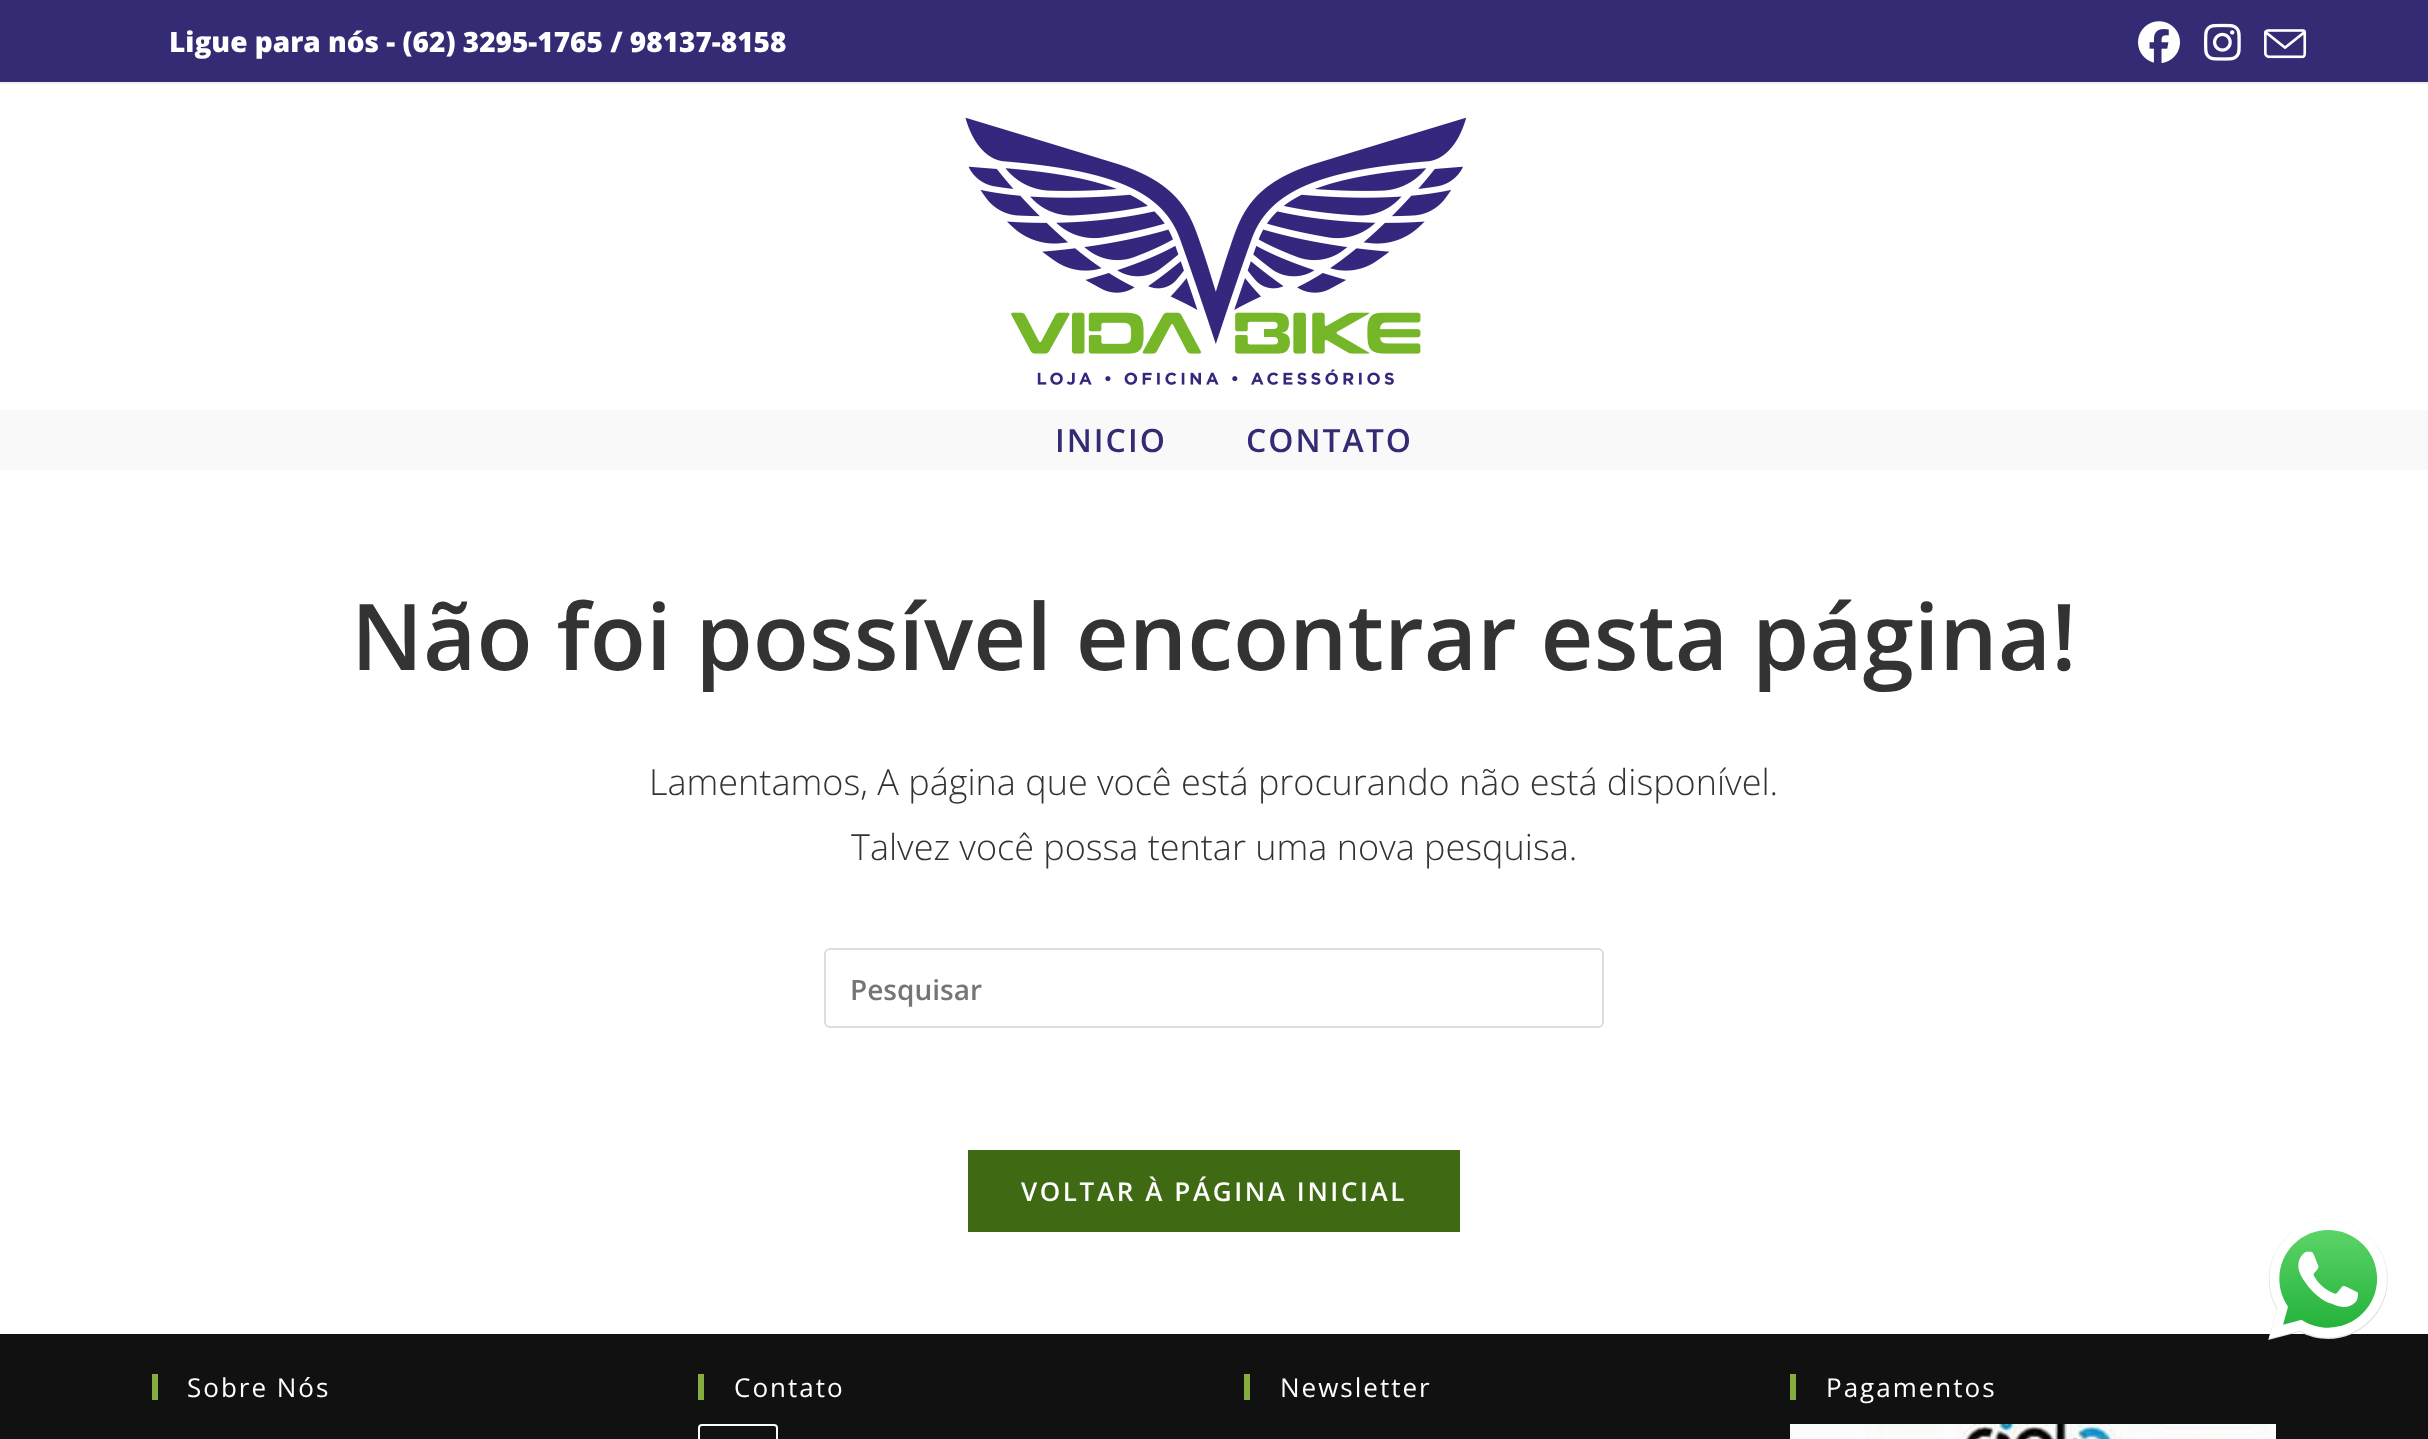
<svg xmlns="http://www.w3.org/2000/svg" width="2428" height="1439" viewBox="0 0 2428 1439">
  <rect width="100%" height="100%" fill="#fff"/>
  <path d="M0 0h2428v82H0z" fill="#332c74"/>
  <path d="M0 82h2428v2H0z" fill="#f1f1f1"/>
  <image x="2138" y="21" width="42" height="42" href="img/1.png"/>
  <image x="2204" y="23" width="37" height="38" href="img/2.png"/>
  <image x="2264" y="29" width="43" height="30" href="img/3.png"/>
  <image x="965" y="117" width="502" height="268" href="img/4.png"/>
  <path d="M0 410h2428v60H0z" fill="#f9f9f9"/>
  <rect x="825" y="949" width="778" height="78" rx="5" fill="none" stroke="#ddd" stroke-width="2"/>
  <path d="M968 1150h492v82H968z" fill="#3f6913"/>
  <path d="M0 1334h2428v105H0z" fill="#111"/>
  <path d="M152 1374h6v26H152z" fill="#86ad3f"/>
  <path d="M698 1374h6v26H698z" fill="#86ad3f"/>
  <rect x="699" y="1425" width="78" height="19" rx="3" fill="none" stroke="#fff" stroke-width="2"/>
  <path d="M1244 1374h6v26H1244z" fill="#86ad3f"/>
  <path d="M1790 1374h6v26H1790z" fill="#86ad3f"/>
  <image x="1790" y="1424" width="486" height="15" href="img/5.png"/>
  <image x="2268" y="1220" width="120" height="120" href="img/6.png"/>
  <text x="169" y="52" font-family="Open Sans" font-size="28" font-weight="800" fill="#fff">Ligue para nós - (62) 3295-1765 / 98137-8158</text>
  <g font-family="Open Sans" font-size="32" font-weight="600" letter-spacing="2" fill="#332c74">
    <text x="1055" y="452">INICIO</text>
    <text x="1246" y="452">CONTATO</text>
  </g>
  <text x="351" y="670" font-family="Open Sans" font-size="92" font-weight="600" fill="#333">Não foi possível encontrar esta página!</text>
  <g font-family="Open Sans" font-size="36" font-weight="300" fill="#333">
    <text x="649" y="795">Lamentamos, A página que você está procurando não está disponível.</text>
    <text x="851" y="860">Talvez você possa tentar uma nova pesquisa.</text>
  </g>
  <text x="850" y="1000" font-family="Open Sans" font-size="28" font-weight="600" fill="#757575">Pesquisar</text>
  <text x="1021" y="1201" font-family="Open Sans" font-size="26" font-weight="600" letter-spacing="2.6" fill="#fff">VOLTAR À PÁGINA INICIAL</text>
  <g font-family="Open Sans" font-size="26" letter-spacing="2" fill="#fff">
    <text x="187" y="1397">Sobre Nós</text>
    <text x="734" y="1397">Contato</text>
    <text x="1280" y="1397">Newsletter</text>
    <text x="1826" y="1397">Pagamentos</text>
  </g>
</svg>
